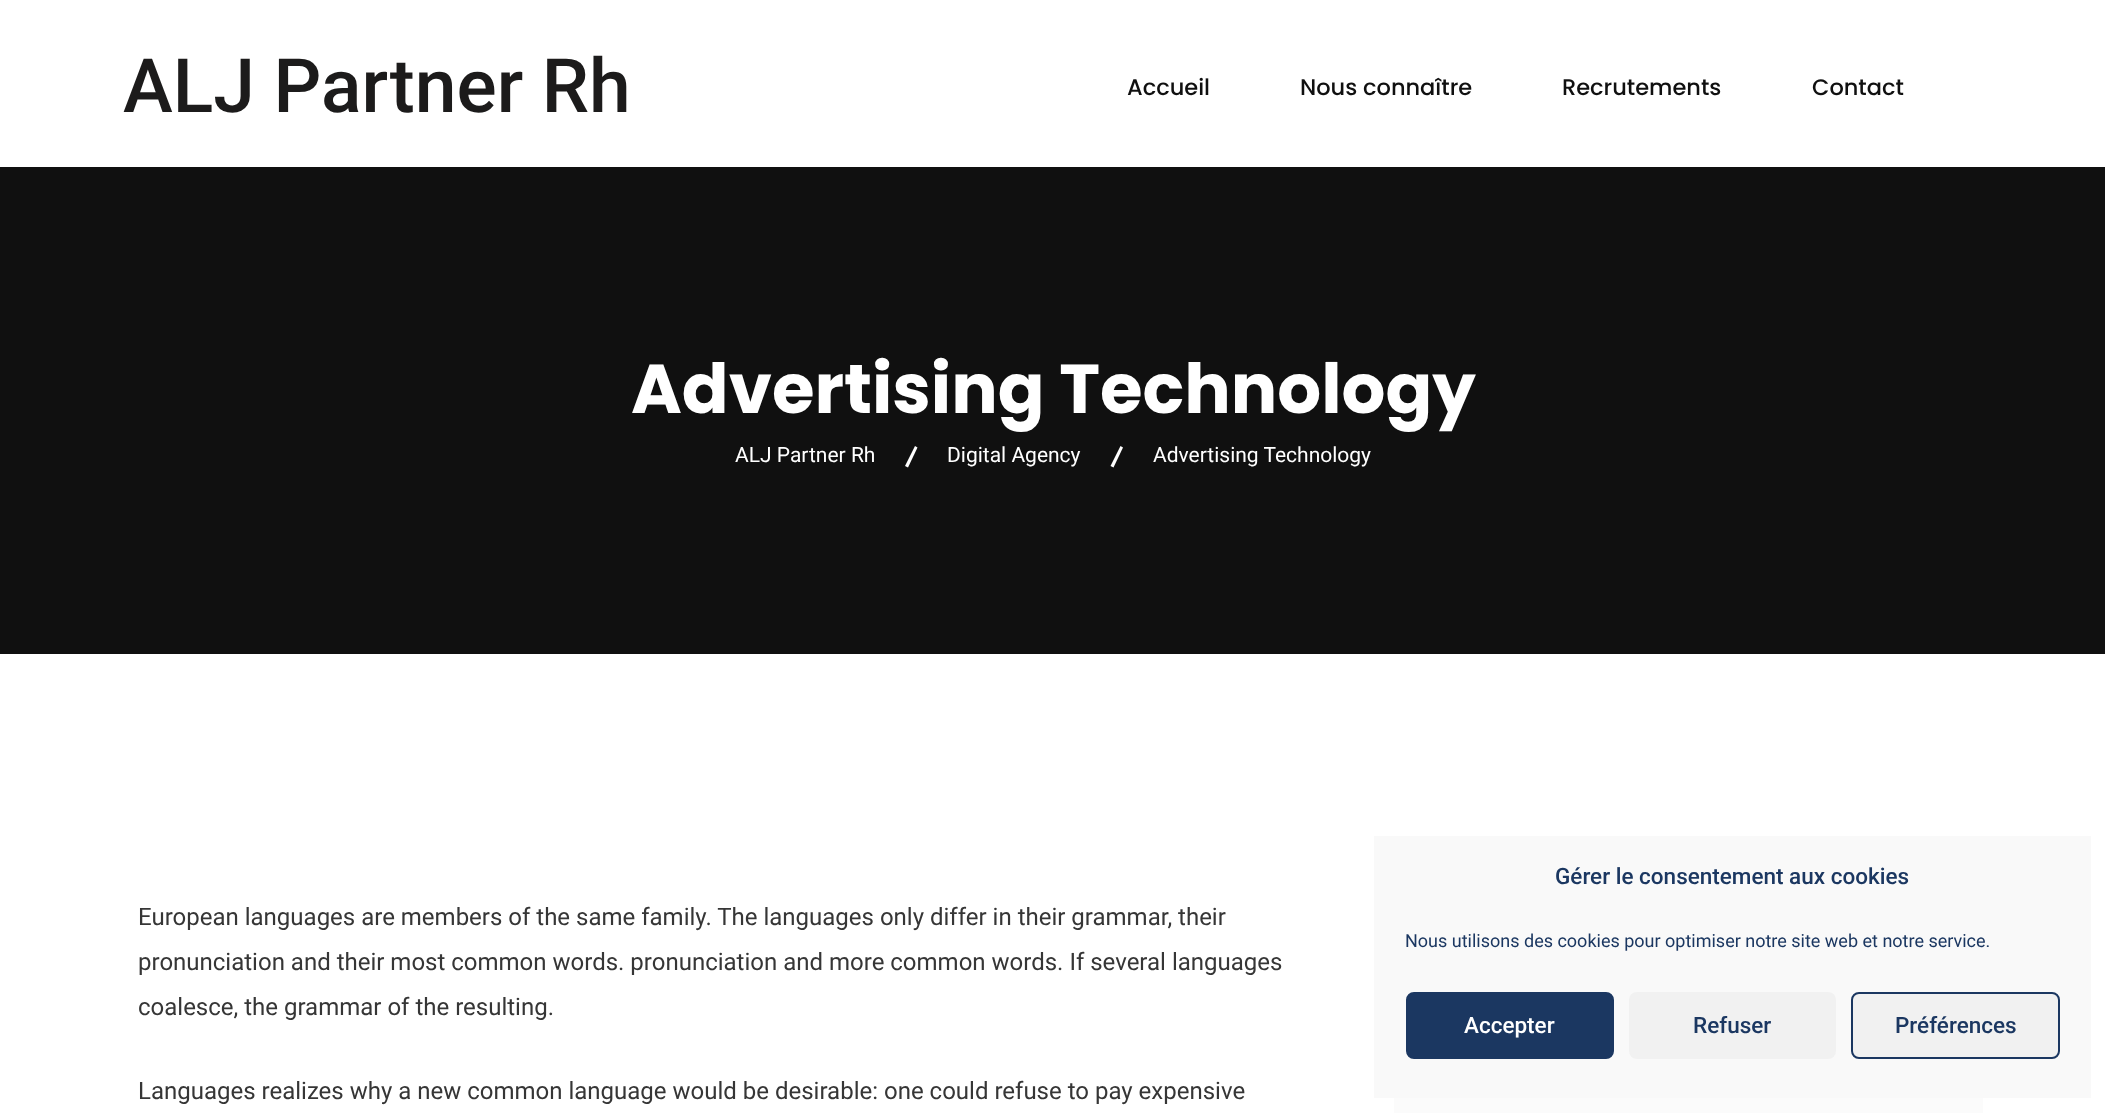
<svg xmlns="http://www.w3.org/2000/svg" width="2105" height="1113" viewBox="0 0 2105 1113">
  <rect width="100%" height="100%" fill="#fff"/>
  <path d="M0 167h2105v487H0z" fill="#101010"/>
  <path d="M915 446L917.5 447.5L908 467.5L905 466Z" fill="#fff"/>
  <path d="M1120.5 446L1123 447.5L1113.5 467.5L1110.5 466Z" fill="#fff"/>
  <path d="M1394 1098h589v15H1394z" fill="#fbfbfb"/>
  <path d="M1374 836h717v262H1374z" fill="#f9f9f9"/>
  <rect x="1407" y="993" width="206" height="65" rx="7" fill="#1b3761" stroke="#1b3761" stroke-width="2"/>
  <rect x="1629" y="992" width="207" height="67" rx="8" fill="#f1f1f1"/>
  <rect x="1852" y="993" width="207" height="65" rx="7" fill="#f1f1f1" stroke="#1b3761" stroke-width="2"/>
  <text x="123" y="112" font-family="Roboto" font-size="75" font-weight="500" fill="#1c1b1b">ALJ Partner Rh</text>
  <g font-family="Poppins" font-size="22.5" font-weight="500" fill="#101010">
    <text x="1127" y="95">Accueil</text>
    <text x="1300" y="95">Nous connaître</text>
    <text x="1562" y="95">Recrutements</text>
    <text x="1812" y="95">Contact</text>
  </g>
  <text x="631" y="413" font-family="Poppins" font-size="69" font-weight="bold" fill="#fff">Advertising Technology</text>
  <g font-family="Roboto" font-size="21" fill="#fff">
    <text x="735" y="462">ALJ Partner Rh</text>
    <text x="947" y="462">Digital Agency</text>
    <text x="1153" y="462">Advertising Technology</text>
  </g>
  <g font-family="Roboto" font-size="24" fill="#363636">
    <text x="138" y="925">European languages are members of the same family. The languages only differ in their grammar, their</text>
    <text x="138" y="970">pronunciation and their most common words. pronunciation and more common words. If several languages</text>
    <text x="138" y="1015">coalesce, the grammar of the resulting.</text>
    <text x="138" y="1099">Languages realizes why a new common language would be desirable: one could refuse to pay expensive</text>
  </g>
  <text x="1555" y="884" font-family="Roboto" font-size="22.5" font-weight="500" fill="#1b3761">Gérer le consentement aux cookies</text>
  <text x="1405" y="947" font-family="Roboto" font-size="18" fill="#1b3761">Nous utilisons des cookies pour optimiser notre site web et notre service.</text>
  <text x="1464" y="1033" font-family="Roboto" font-size="22.5" font-weight="500" fill="#fff">Accepter</text>
  <g font-family="Roboto" font-size="22.5" font-weight="500" fill="#1b3761">
    <text x="1693" y="1033">Refuser</text>
    <text x="1895" y="1033">Préférences</text>
  </g>
</svg>
